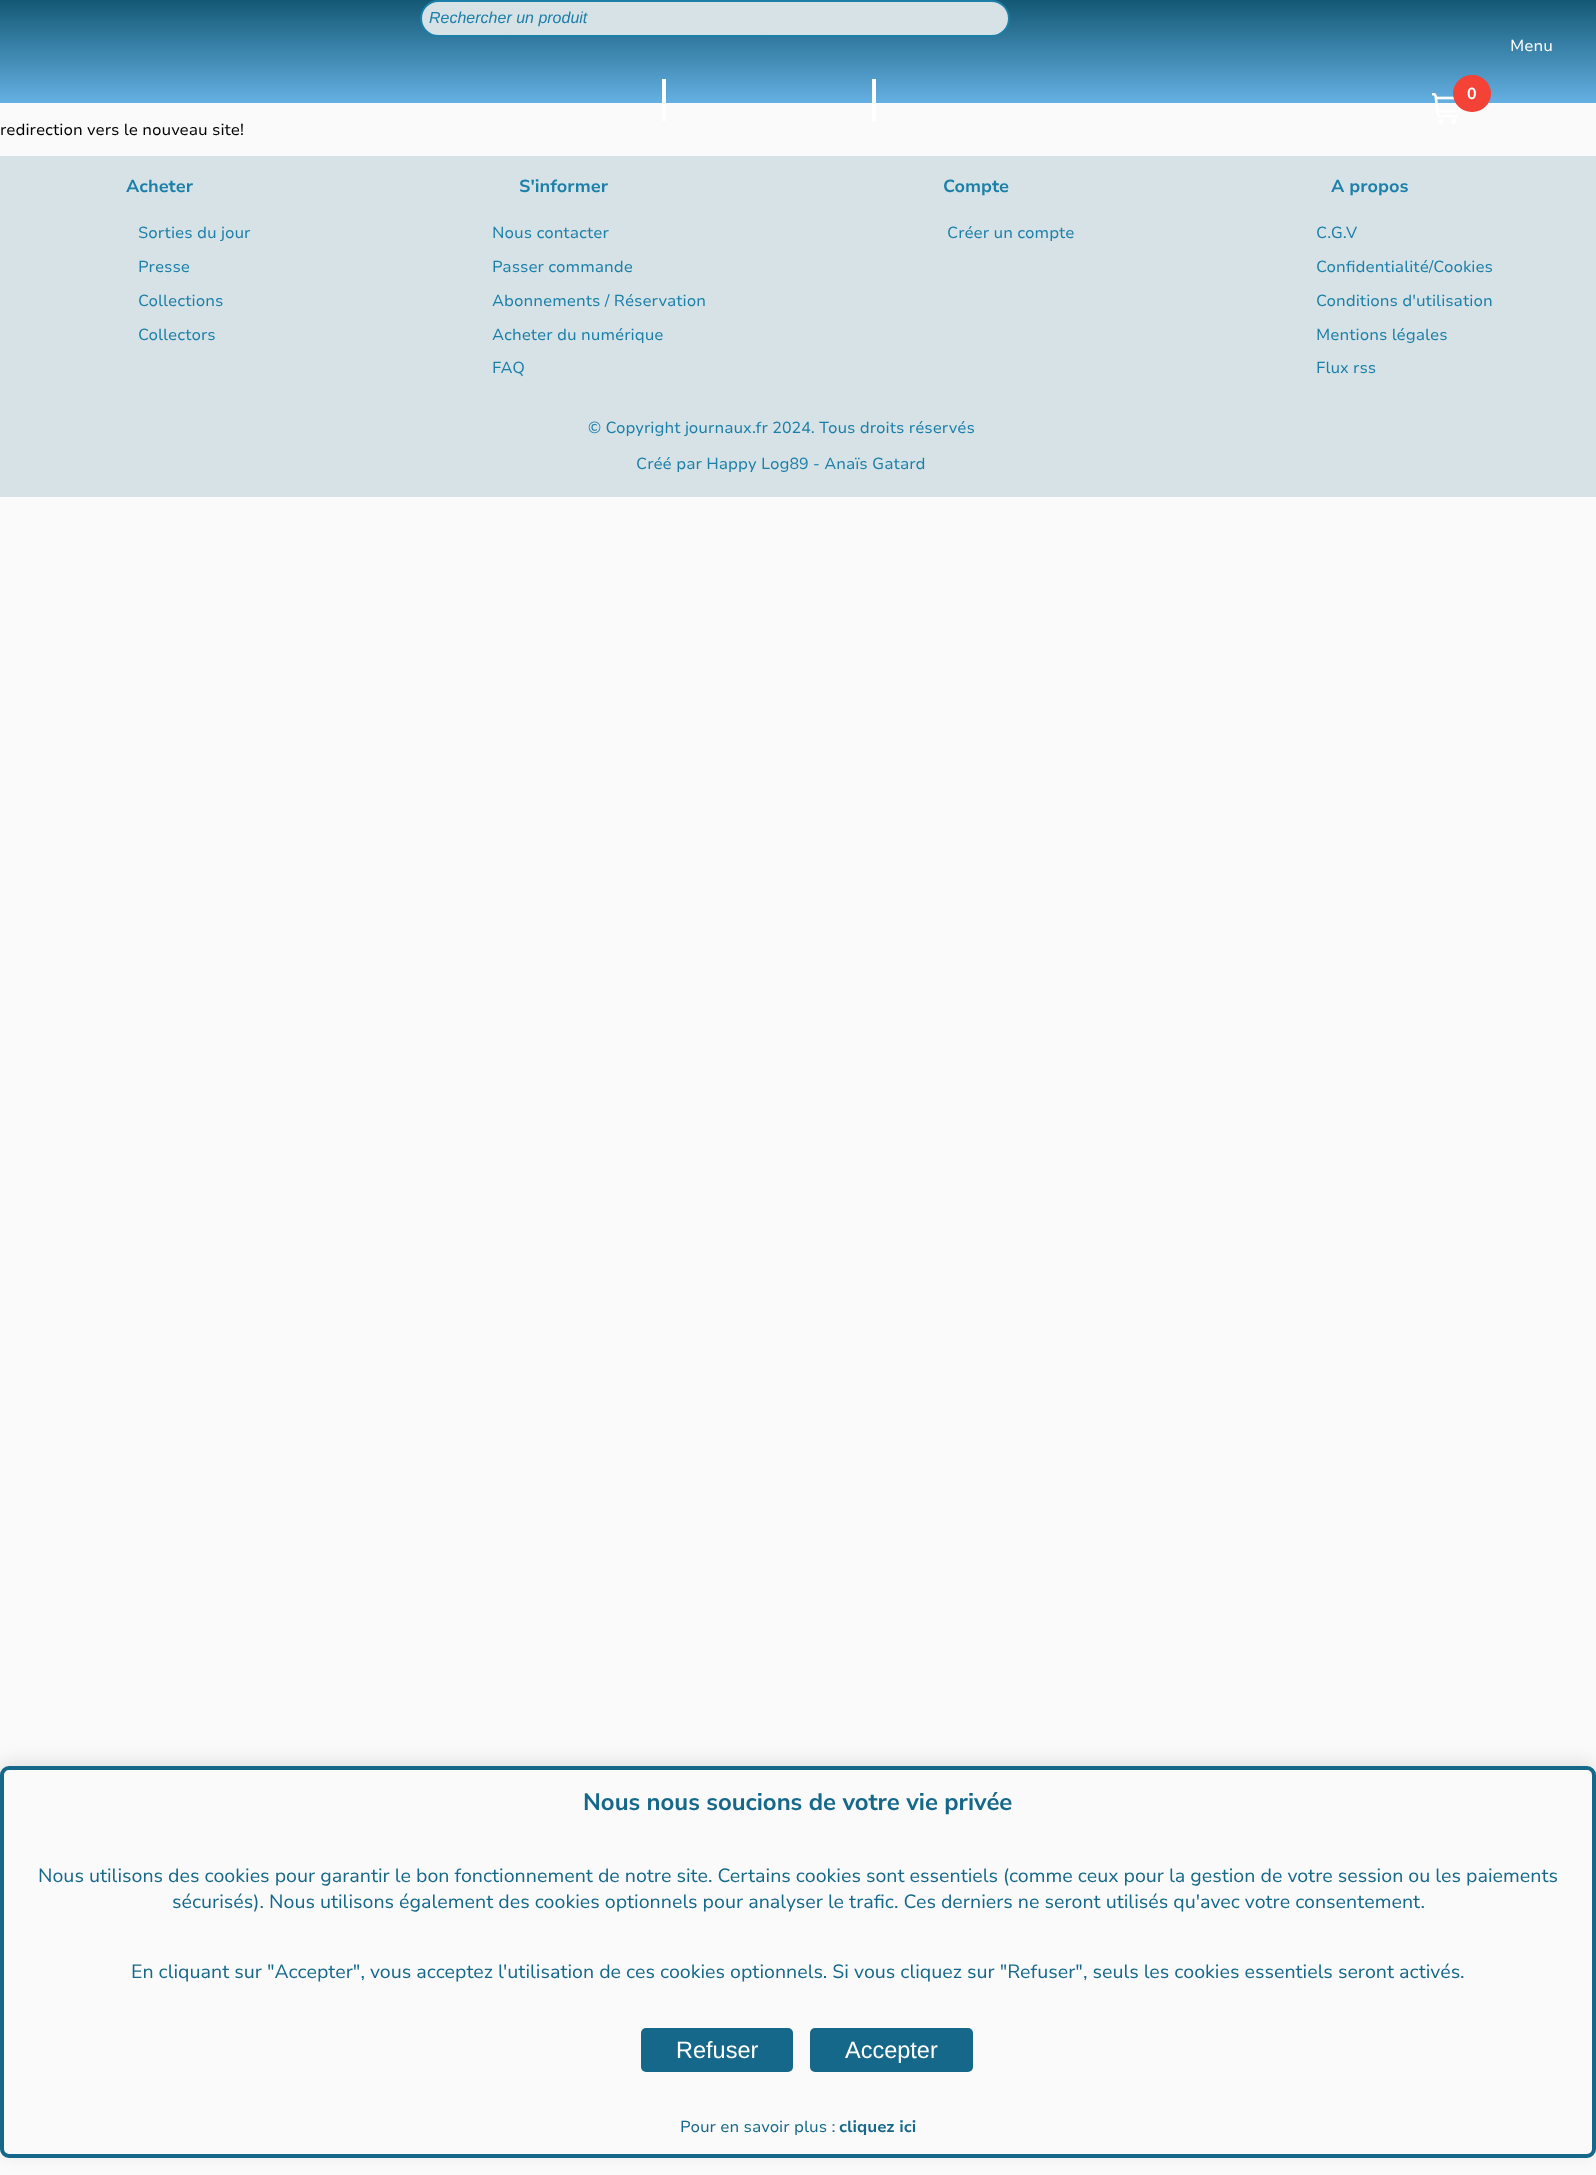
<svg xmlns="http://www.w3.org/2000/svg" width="1596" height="2175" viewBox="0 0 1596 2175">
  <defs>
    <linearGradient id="g1" gradientUnits="userSpaceOnUse" x1="798" y1="0" x2="798" y2="103"><stop offset="0" stop-color="#135975"/><stop offset="1" stop-color="#65b0e3"/></linearGradient>
  </defs>
  <rect width="100%" height="100%" fill="#fafafa"/>
  <path d="M0 0h1596v103H0z" fill="url(#g1)"/>
  <rect x="421" y="1" width="588" height="35" rx="17.5" fill="#d6e2e6" stroke="#1b7fa8" stroke-width="2"/>
  <path d="M662 79h4v42H662z" fill="#fff"/>
  <path d="M872 79h4v42H872z" fill="#fff"/>
  <image x="1432" y="93" width="29" height="31" href="img/1.png"/>
  <rect x="1453" y="75" width="38" height="37" rx="18.5" fill="#f44336"/>
  <path d="M0 156h1596v341H0z" fill="#d6e2e6"/>
  <rect y="1762" width="1596" height="392" rx="9" fill="#0000001a" filter="blur(9px)"/>
  <rect x="2" y="1768" width="1592" height="388" rx="7" fill="#fafafa" stroke="#16688a" stroke-width="4"/>
  <rect x="641" y="2028" width="152" height="44" rx="5" fill="#16688a"/>
  <rect x="810" y="2028" width="163" height="44" rx="5" fill="#16688a"/>
  <text x="429" y="23" font-family="Liberation Sans" font-size="16" font-style="italic" fill="#1b7fa8">Rechercher un produit</text>
  <text x="1510" y="51" font-family="Nunito Sans" font-size="16" fill="#fff">Menu</text>
  <text x="1467" y="99" font-family="'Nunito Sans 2'" font-size="16" font-weight="bold" fill="#fff">0</text>
  <text x="0" y="135" font-family="Nunito Sans" font-size="16" fill="#000">redirection vers le nouveau site!</text>
  <text x="126" y="192" font-family="Nunito Sans" font-size="17.5" font-weight="bold" fill="#1b7fa8">Acheter</text>
  <g font-family="Nunito Sans" font-size="16" fill="#1b7fa8">
    <text x="138" y="238">Sorties du jour</text>
    <text x="138" y="272">Presse</text>
    <text x="138" y="306">Collections</text>
    <text x="138" y="340">Collectors</text>
  </g>
  <text x="519" y="192" font-family="Nunito Sans" font-size="17.5" font-weight="bold" fill="#1b7fa8">S'informer</text>
  <g font-family="Nunito Sans" font-size="16" fill="#1b7fa8">
    <text x="492" y="238">Nous contacter</text>
    <text x="492" y="272">Passer commande</text>
    <text x="492" y="306">Abonnements / Réservation</text>
    <text x="492" y="340">Acheter du numérique</text>
    <text x="492" y="373">FAQ</text>
  </g>
  <text x="943" y="192" font-family="Nunito Sans" font-size="17.5" font-weight="bold" fill="#1b7fa8">Compte</text>
  <text x="947" y="238" font-family="Nunito Sans" font-size="16" fill="#1b7fa8">Créer un compte</text>
  <text x="1331" y="192" font-family="Nunito Sans" font-size="17.5" font-weight="bold" fill="#1b7fa8">A propos</text>
  <g font-family="Nunito Sans" font-size="16" fill="#1b7fa8">
    <text x="1316" y="238">C.G.V</text>
    <text x="1316" y="272">Confidentialité/Cookies</text>
    <text x="1316" y="306">Conditions d'utilisation</text>
    <text x="1316" y="340">Mentions légales</text>
    <text x="1316" y="373">Flux rss</text>
    <text x="588" y="433">© Copyright journaux.fr 2024. Tous droits réservés</text>
    <text x="636" y="469">Créé par Happy Log89 - Anaïs Gatard</text>
  </g>
  <text x="583" y="1810" font-family="'Nunito Sans 2'" font-size="23.9" font-weight="bold" fill="#16688a">Nous nous soucions de votre vie privée</text>
  <g font-family="'Nunito Sans 2'" font-size="19.15" fill="#16688a">
    <text x="38" y="1882">Nous utilisons des cookies pour garantir le bon fonctionnement de notre site. Certains cookies sont essentiels (comme ceux pour la gestion de votre session ou les paiements</text>
    <text x="172" y="1908">sécurisés). Nous utilisons également des cookies optionnels pour analyser le trafic. Ces derniers ne seront utilisés qu'avec votre consentement.</text>
    <text x="131" y="1978">En cliquant sur "Accepter", vous acceptez l'utilisation de ces cookies optionnels. Si vous cliquez sur "Refuser", seuls les cookies essentiels seront activés.</text>
  </g>
  <g font-family="Liberation Sans" font-size="23.5" fill="#fff">
    <text x="676" y="2058">Refuser</text>
    <text x="845" y="2058">Accepter</text>
  </g>
  <text x="680" y="2132" font-family="Nunito Sans" font-size="16" fill="#16688a">Pour en savoir plus :</text>
  <text x="839" y="2132" font-family="'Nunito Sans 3'" font-size="16" font-weight="bold" fill="#16688a">cliquez ici</text>
</svg>
